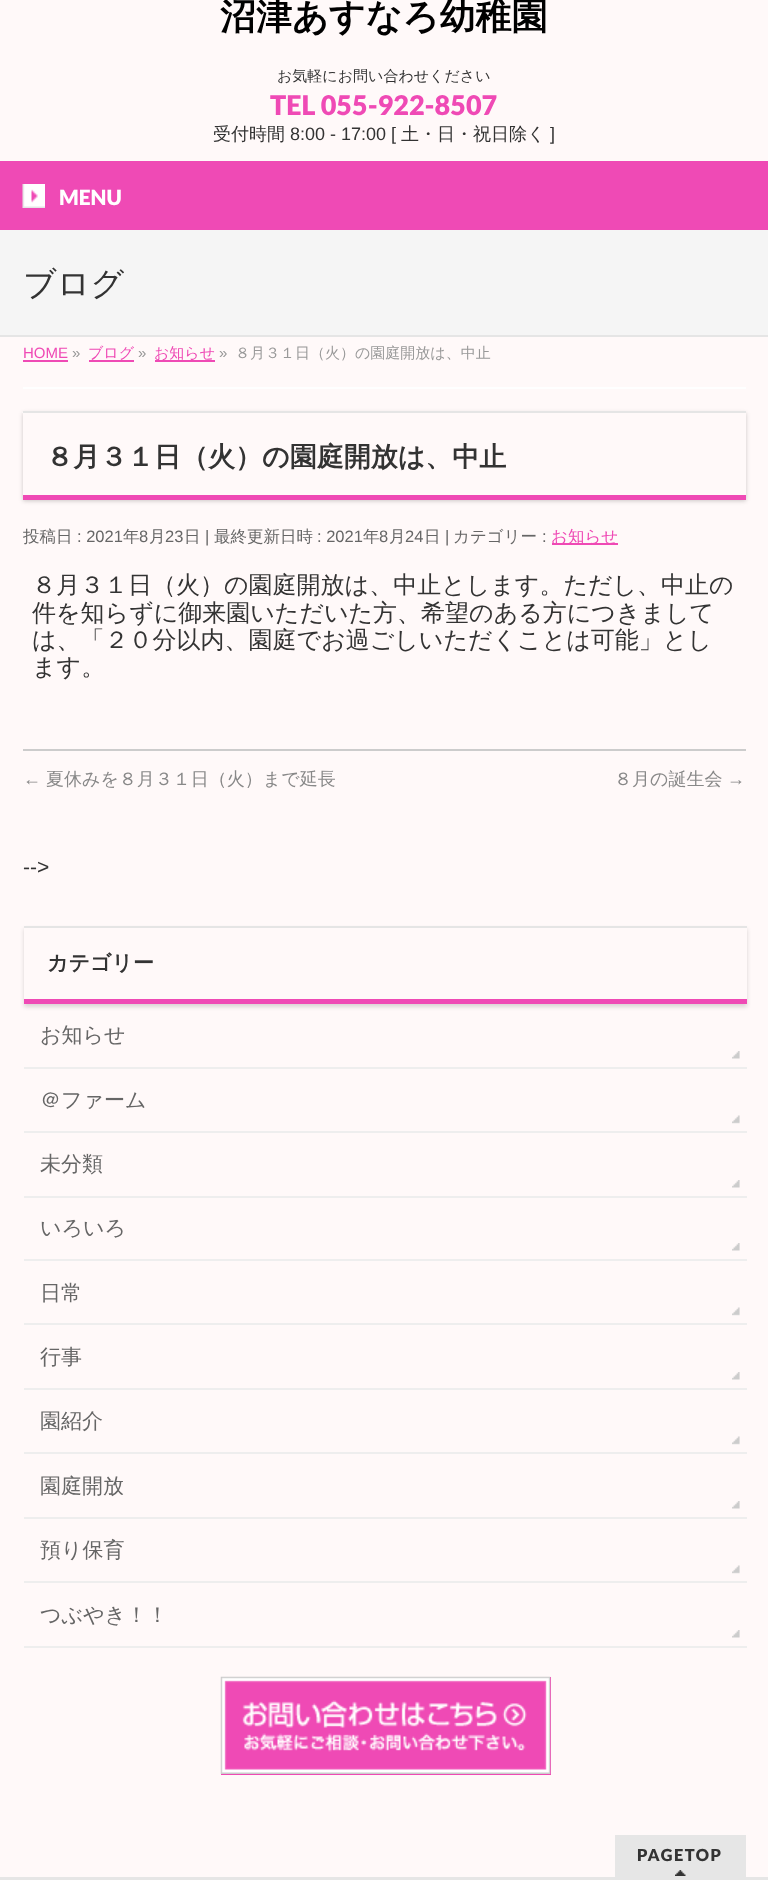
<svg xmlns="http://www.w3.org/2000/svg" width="768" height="1880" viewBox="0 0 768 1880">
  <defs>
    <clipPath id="clip1"><path d="M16 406H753V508H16ZM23 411H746V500H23Z" clip-rule="evenodd"/></clipPath>
    <clipPath id="clip2"><path d="M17 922H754V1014H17ZM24 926H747V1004H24Z" clip-rule="evenodd"/></clipPath>
  </defs>
  <rect width="100%" height="100%" fill="#fff9f9"/>
  <path d="M0 161h768v69H0z" fill="#ef4ab5"/>
  <image x="22" y="184" width="23" height="24" href="img/1.png"/>
  <path d="M0 230h768v105H0z" fill="#f5f5f5"/>
  <path d="M0 335h768v2H0z" fill="#e5e5e5"/>
  <path d="M23 387h723v2H23z" fill="#fff"/>
  <path d="M23 360h45v2H23z" fill="#ef4ab5"/>
  <path d="M89 360h45v2H89z" fill="#ef4ab5"/>
  <path d="M155 360h60v2H155z" fill="#ef4ab5"/>
  <g clip-path="url(#clip1)">
    <path d="M23 413h723v88H23z" fill="#00000033" filter="blur(2px)"/>
  </g>
  <image x="22" y="412" width="1" height="1" href="img/2.png"/>
  <path d="M23 411h723v2H23z" fill="#e5e5e5"/>
  <path d="M23 495h723v5H23z" fill="#ef4ab5"/>
  <path d="M552 543h66v2H552z" fill="#ef4ab5"/>
  <path d="M23 749h723v2H23z" fill="#ccc"/>
  <g clip-path="url(#clip2)">
    <path d="M24 929h723v78H24z" fill="#00000026" filter="blur(2px)"/>
  </g>
  <path d="M24 926h723v2H24z" fill="#e5e5e5"/>
  <path d="M24 999h723v5H24z" fill="#ef4ab5"/>
  <path d="M24 1067h723v2H24z" fill="#eee"/>
  <image x="732" y="1051" width="8" height="8" href="img/3.png"/>
  <path d="M24 1131h723v2H24z" fill="#eee"/>
  <image x="732" y="1115" width="8" height="9" href="img/4.png"/>
  <path d="M24 1196h723v2H24z" fill="#eee"/>
  <image x="732" y="1180" width="8" height="8" href="img/3.png"/>
  <path d="M24 1259h723v2H24z" fill="#eee"/>
  <image x="732" y="1243" width="8" height="8" href="img/3.png"/>
  <path d="M24 1323h723v2H24z" fill="#eee"/>
  <image x="732" y="1307" width="8" height="9" href="img/4.png"/>
  <path d="M24 1388h723v2H24z" fill="#eee"/>
  <image x="732" y="1372" width="8" height="8" href="img/3.png"/>
  <path d="M24 1452h723v2H24z" fill="#eee"/>
  <image x="732" y="1436" width="8" height="9" href="img/4.png"/>
  <path d="M24 1517h723v2H24z" fill="#eee"/>
  <image x="732" y="1501" width="8" height="8" href="img/3.png"/>
  <path d="M24 1581h723v2H24z" fill="#eee"/>
  <image x="732" y="1565" width="8" height="9" href="img/4.png"/>
  <path d="M24 1646h723v2H24z" fill="#eee"/>
  <image x="732" y="1630" width="8" height="8" href="img/3.png"/>
  <path d="M221 1677h330v98H221z" fill="#ef4ab5"/>
  <image x="220" y="1676" width="331" height="98" href="img/5.png"/>
  <path d="M615 1835h131v42H615z" fill="#e6e6e6"/>
  <image x="675" y="1870" width="11" height="6" href="img/6.png"/>
  <path d="M0 1877h768v3H0z" fill="#e6e6e6"/>
  <text x="220" y="29" font-family="WenQuanYi Zen Hei" font-size="36" font-weight="bold" fill="#000">沼津あすなろ幼稚園</text>
  <text x="277" y="81" font-family="WenQuanYi Zen Hei" font-size="15" font-weight="500" fill="#333">お気軽にお問い合わせください</text>
  <text x="270" y="115" font-family="Lato" font-size="27" font-weight="900" fill="#ef4ab5">TEL 055-922-8507</text>
  <text x="213" y="140" font-family="WenQuanYi Zen Hei" font-size="18" font-weight="500" fill="#333">受付時間</text>
  <text x="290" y="140" font-family="Liberation Sans" font-size="18" fill="#333">8:00 - 17:00 [</text>
  <text x="401" y="140" font-family="WenQuanYi Zen Hei" font-size="18" font-weight="500" fill="#333">土・日・祝日除く</text>
  <text x="550" y="140" font-family="Liberation Sans" font-size="18" fill="#333">]</text>
  <text x="59" y="205" font-family="Lato" font-size="21" font-weight="900" fill="#fff">MENU</text>
  <text x="23" y="295" font-family="WenQuanYi Zen Hei" font-size="33" font-weight="500" fill="#333">ブログ</text>
  <text x="23" y="358" font-family="Liberation Sans" font-size="15" fill="#ef4ab5">HOME</text>
  <text x="72" y="358" font-family="Liberation Sans" font-size="15" fill="#999">»</text>
  <text x="88" y="358" font-family="WenQuanYi Zen Hei" font-size="15" font-weight="500" fill="#ef4ab5">ブログ</text>
  <text x="138" y="358" font-family="Liberation Sans" font-size="15" fill="#999">»</text>
  <text x="154" y="358" font-family="WenQuanYi Zen Hei" font-size="15" font-weight="500" fill="#ef4ab5">お知らせ</text>
  <text x="219" y="358" font-family="Liberation Sans" font-size="15" fill="#999">»</text>
  <text x="235" y="358" font-family="WenQuanYi Zen Hei" font-size="15" font-weight="500" fill="#999">８月３１日（火）の園庭開放は、中止</text>
  <text x="46" y="466" font-family="WenQuanYi Zen Hei" font-size="27" font-weight="bold" fill="#333">８月３１日（火）の園庭開放は、中止</text>
  <text x="23" y="542" font-family="WenQuanYi Zen Hei" font-size="16.5" font-weight="500" fill="#666">投稿日</text>
  <text x="77" y="542" font-family="Liberation Sans" font-size="16.5" fill="#666">: 2021</text>
  <text x="123" y="542" font-family="WenQuanYi Zen Hei" font-size="16.5" font-weight="500" fill="#666">年</text>
  <text x="139" y="542" font-family="Liberation Sans" font-size="16.5" fill="#666">8</text>
  <text x="149" y="542" font-family="WenQuanYi Zen Hei" font-size="16.5" font-weight="500" fill="#666">月</text>
  <text x="165" y="542" font-family="Liberation Sans" font-size="16.5" fill="#666">23</text>
  <text x="184" y="542" font-family="WenQuanYi Zen Hei" font-size="16.5" font-weight="500" fill="#666">日</text>
  <text x="205" y="542" font-family="Liberation Sans" font-size="16.5" fill="#666">|</text>
  <text x="214" y="542" font-family="WenQuanYi Zen Hei" font-size="16.5" font-weight="500" fill="#666">最終更新日時</text>
  <text x="317" y="542" font-family="Liberation Sans" font-size="16.5" fill="#666">: 2021</text>
  <text x="363" y="542" font-family="WenQuanYi Zen Hei" font-size="16.5" font-weight="500" fill="#666">年</text>
  <text x="379" y="542" font-family="Liberation Sans" font-size="16.5" fill="#666">8</text>
  <text x="389" y="542" font-family="WenQuanYi Zen Hei" font-size="16.5" font-weight="500" fill="#666">月</text>
  <text x="405" y="542" font-family="Liberation Sans" font-size="16.5" fill="#666">24</text>
  <text x="424" y="542" font-family="WenQuanYi Zen Hei" font-size="16.5" font-weight="500" fill="#666">日</text>
  <text x="445" y="542" font-family="Liberation Sans" font-size="16.5" fill="#666">|</text>
  <text x="453" y="542" font-family="WenQuanYi Zen Hei" font-size="16.5" font-weight="500" fill="#666">カテゴリー</text>
  <text x="542" y="542" font-family="Liberation Sans" font-size="16.5" fill="#666">:</text>
  <text x="551" y="542" font-family="WenQuanYi Zen Hei" font-size="16.5" font-weight="500" fill="#ef4ab5">お知らせ</text>
  <g font-family="WenQuanYi Zen Hei" font-size="24" font-weight="500" fill="#333">
    <text x="32" y="593">８月３１日（火）の園庭開放は、中止とします。ただし、中止の</text>
    <text x="32" y="621">件を知らずに御来園いただいた方、希望のある方につきまして</text>
    <text x="32" y="648">は、「２０分以内、園庭でお過ごしいただくことは可能」とし</text>
    <text x="32" y="675">ます。</text>
  </g>
  <text x="23" y="785" font-family="Liberation Sans" font-size="18" fill="#888">←</text>
  <g font-family="WenQuanYi Zen Hei" font-size="18" font-weight="500" fill="#888">
    <text x="46" y="785">夏休みを８月３１日（火）まで延長</text>
    <text x="614" y="785">８月の誕生会</text>
  </g>
  <text x="727" y="785" font-family="Liberation Sans" font-size="18" fill="#888">→</text>
  <text x="23" y="874" font-family="Liberation Sans" font-size="21" fill="#333">--&gt;</text>
  <text x="47" y="970" font-family="WenQuanYi Zen Hei" font-size="21" font-weight="bold" fill="#333">カテゴリー</text>
  <g font-family="WenQuanYi Zen Hei" font-size="21" font-weight="500" fill="#666">
    <text x="40" y="1042">お知らせ</text>
    <text x="40" y="1107">＠ファーム</text>
    <text x="40" y="1171">未分類</text>
    <text x="40" y="1235">いろいろ</text>
    <text x="40" y="1300">日常</text>
    <text x="40" y="1364">行事</text>
    <text x="40" y="1428">園紹介</text>
    <text x="40" y="1493">園庭開放</text>
    <text x="40" y="1557">預り保育</text>
    <text x="40" y="1622">つぶやき！！</text>
  </g>
  <text x="637" y="1861" font-family="Lato" font-size="16.5" font-weight="900" letter-spacing="1.5" fill="#333">PAGETOP</text>
</svg>
